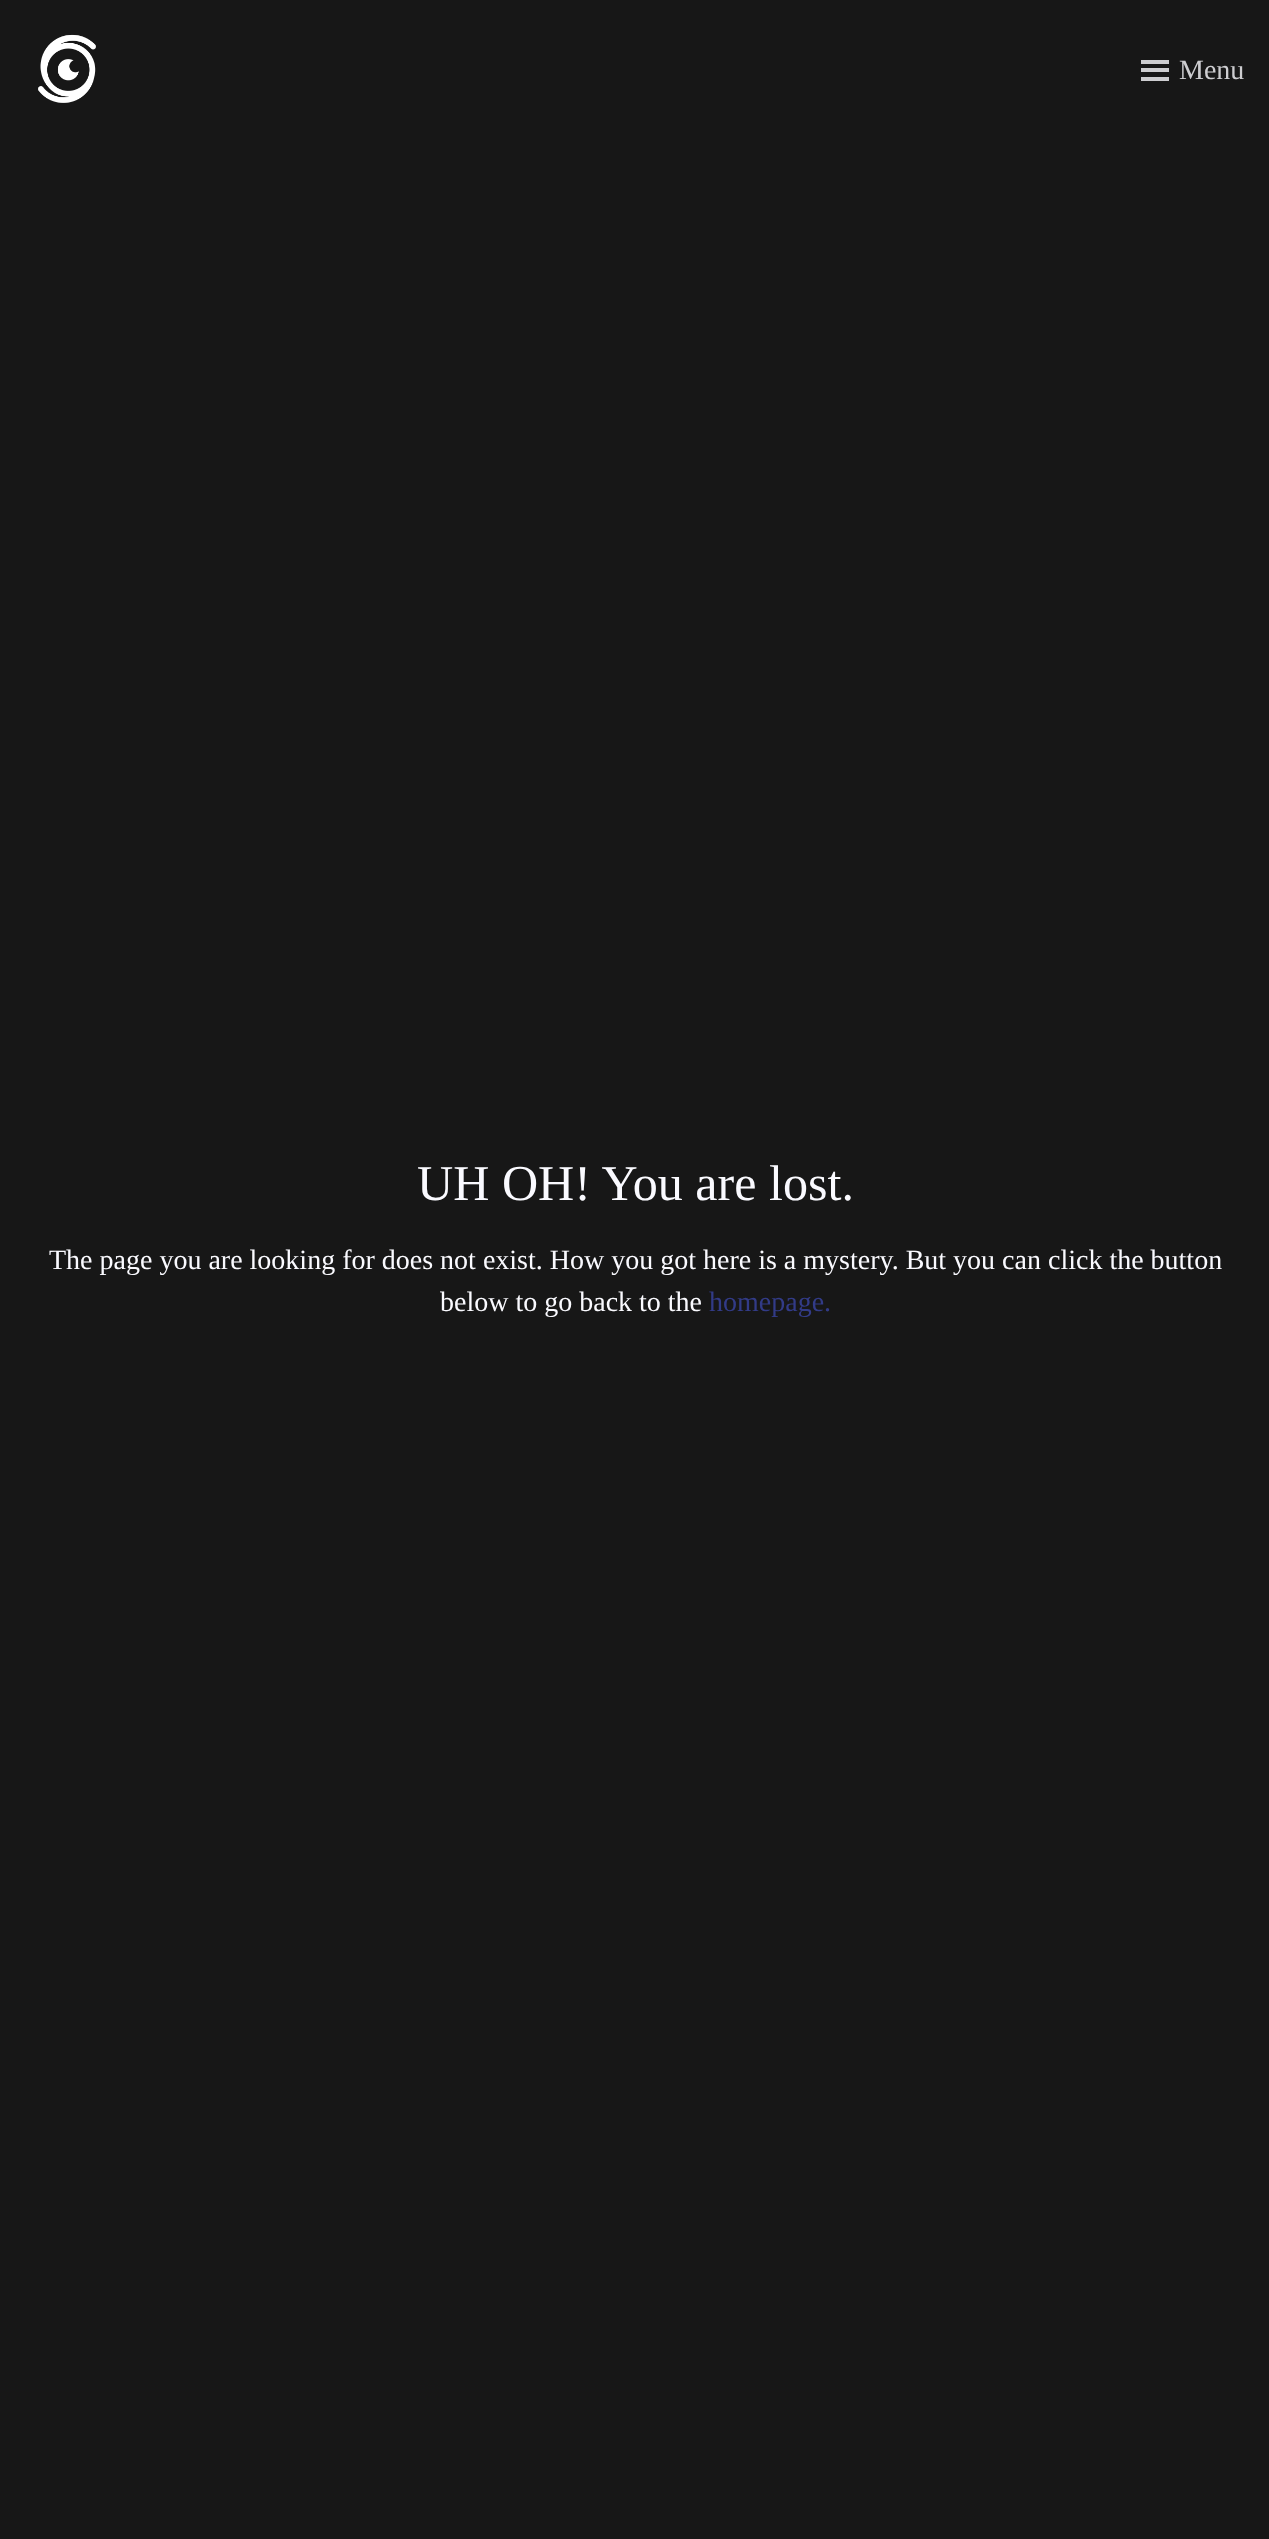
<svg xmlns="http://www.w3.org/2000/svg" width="1269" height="2539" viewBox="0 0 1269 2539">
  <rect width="100%" height="100%" fill="#171717"/>
  <image x="38" y="34" width="58" height="69" href="img/1.png"/>
  <path d="M1141 68h28v4H1141z" fill="#cdcdd0"/>
  <path d="M1141 60h28v4H1141z" fill="#cdcdd0"/>
  <path d="M1141 77h28v4H1141z" fill="#cdcdd0"/>
  <text x="1179" y="79" font-family="Liberation Serif" font-size="28" fill="#cdcdd0">Menu</text>
  <text x="417" y="1200" font-family="Liberation Serif" font-size="50.1" fill="#fafaff">UH OH! You are lost.</text>
  <g font-family="Liberation Serif" font-size="28" fill="#fafaff">
    <text x="49" y="1269">The page you are looking for does not exist. How you got here is a mystery. But you can click the button</text>
    <text x="440" y="1311">below to go back to the</text>
  </g>
  <text x="709" y="1311" font-family="Liberation Serif" font-size="28" fill="#323b87">homepage.</text>
</svg>
